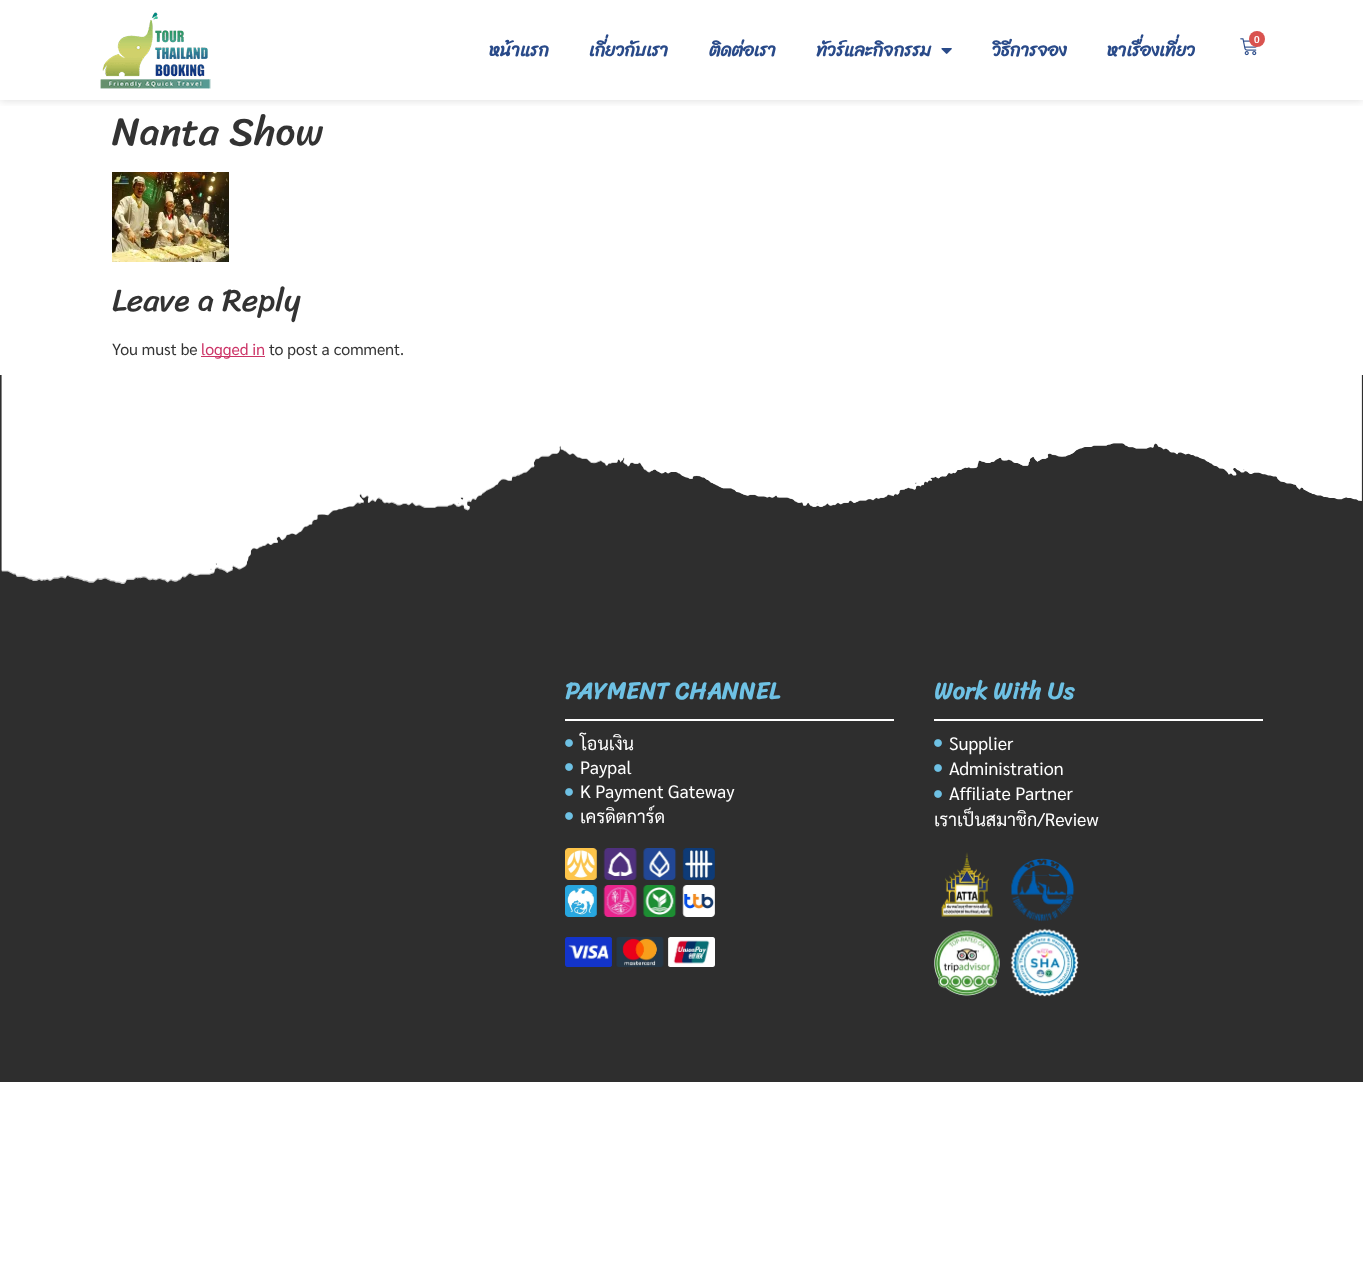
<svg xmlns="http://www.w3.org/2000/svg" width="1363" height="1277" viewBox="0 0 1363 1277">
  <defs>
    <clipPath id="clip1"><path d="M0 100h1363v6H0z"/></clipPath>
  </defs>
  <rect width="100%" height="100%" fill="#fff"/>
  <g clip-path="url(#clip1)">
    <path d="M0 0h1363v100H0z" fill="#00000026" filter="blur(5px)"/>
  </g>
  <image x="100" y="12" width="111" height="77" href="img/1.png"/>
  <image x="941" y="48" width="11" height="6" href="img/2.png"/>
  <image x="1240" y="38" width="18" height="18" href="img/3.png"/>
  <circle cx="1257" cy="39" r="8" fill="#d9534f"/>
  <image x="112" y="172" width="117" height="90" href="img/4.png"/>
  <path d="M201 356h64v1H201z" fill="#c36"/>
  <path d="M0 375h1363v707H0z" fill="#2e2e2e"/>
  <image x="1" y="375" width="1361" height="209" href="img/5.png"/>
  <path d="M565 719h329v2H565z" fill="#fff"/>
  <image x="565" y="739" width="8" height="8" href="img/6.png"/>
  <image x="565" y="763" width="8" height="8" href="img/6.png"/>
  <image x="565" y="788" width="8" height="8" href="img/6.png"/>
  <image x="565" y="812" width="8" height="8" href="img/6.png"/>
  <image x="565" y="848" width="150" height="69" href="img/7.png"/>
  <image x="565" y="937" width="150" height="30" href="img/8.png"/>
  <path d="M934 719h329v2H934z" fill="#fff"/>
  <image x="934" y="739" width="8" height="8" href="img/6.png"/>
  <image x="934" y="764" width="8" height="8" href="img/6.png"/>
  <image x="934" y="790" width="8" height="8" href="img/6.png"/>
  <image x="934" y="852" width="145" height="145" href="img/9.png"/>
  <g font-family="Sriracha" font-size="18" font-weight="bold" fill="#294a89">
    <text x="489" y="56">หน้าแรก</text>
    <text x="589" y="56">เกี่ยวกับเรา</text>
    <text x="709" y="56">ติดต่อเรา</text>
    <text x="816" y="56">ทัวร์และกิจกรรม</text>
    <text x="992" y="56">วิธีการจอง</text>
    <text x="1107" y="56">หาเรื่องเที่ยว</text>
  </g>
  <text x="1254" y="43" font-family="Sarabun" font-size="10" font-weight="600" fill="#fff">0</text>
  <text x="112" y="145" font-family="Sriracha" font-size="40" fill="#333">Nanta Show</text>
  <text x="112" y="311" font-family="Sriracha" font-size="32" fill="#333">Leave a Reply</text>
  <text x="112" y="355" font-family="Sarabun" font-size="16" fill="#333">You must be</text>
  <text x="201" y="355" font-family="Sarabun" font-size="16" fill="#c36">logged in</text>
  <text x="269" y="355" font-family="Sarabun" font-size="16" fill="#333">to post a comment.</text>
  <text x="565" y="699" font-family="Sriracha" font-size="24" font-weight="bold" fill="#6ec1e4">PAYMENT CHANNEL</text>
  <g font-family="Sarabun" font-size="18" fill="#fff">
    <text x="580" y="750">โอนเงิน</text>
    <text x="580" y="774">Paypal</text>
    <text x="580" y="798">K Payment Gateway</text>
    <text x="580" y="823">เครดิตการ์ด</text>
  </g>
  <text x="934" y="699" font-family="Sriracha" font-size="24" font-weight="bold" fill="#6ec1e4">Work With Us</text>
  <g font-family="Sarabun" font-size="18" fill="#fff">
    <text x="949" y="750">Supplier</text>
    <text x="949" y="775">Administration</text>
    <text x="949" y="800">Affiliate Partner</text>
    <text x="934" y="826">เราเป็นสมาชิก/Review</text>
  </g>
</svg>
